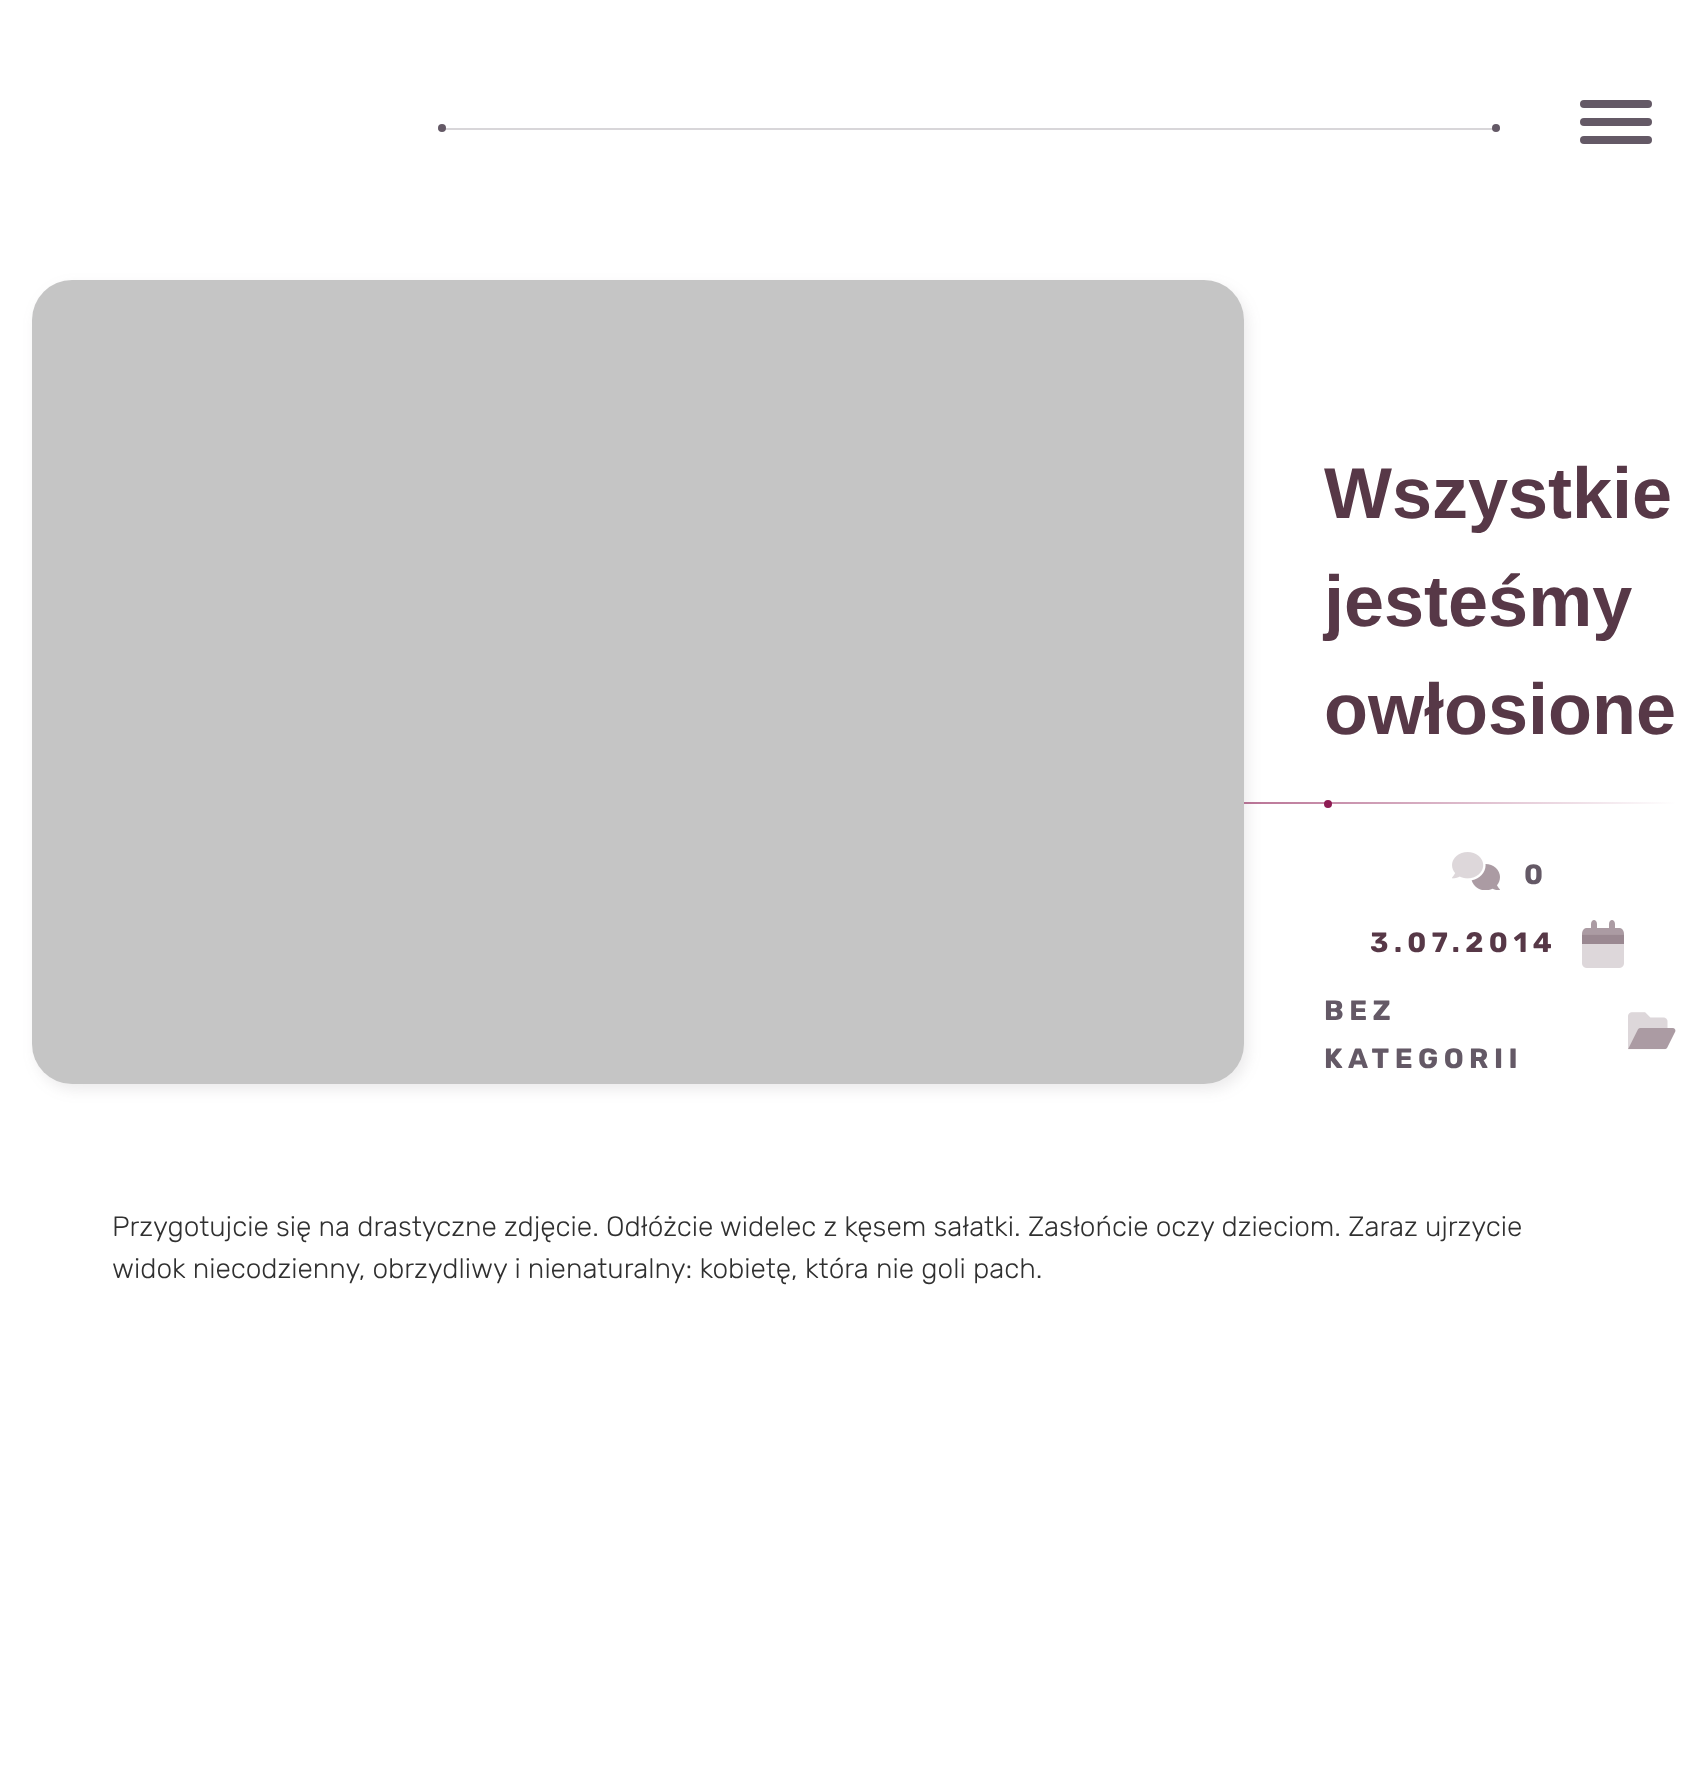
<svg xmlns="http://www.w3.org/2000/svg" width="1708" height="1772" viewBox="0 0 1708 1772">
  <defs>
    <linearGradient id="g1" gradientUnits="userSpaceOnUse" x1="1676" y1="803" x2="972" y2="803"><stop offset="0" stop-color="#fff"/><stop offset="1" stop-color="#8e1b53"/></linearGradient>
  </defs>
  <rect width="100%" height="100%" fill="#fff"/>
  <path d="M438 128h1062v2H438z" fill="#d8d6d9"/>
  <circle cx="442" cy="128" r="4" fill="#645966"/>
  <circle cx="1496" cy="128" r="4" fill="#645966"/>
  <rect x="1580" y="136" width="72" height="8" rx="4" fill="#645966"/>
  <rect x="1580" y="100" width="72" height="8" rx="4" fill="#645966"/>
  <rect x="1580" y="118" width="72" height="8" rx="4" fill="#645966"/>
  <path d="M1244 802h432v2H1244z" fill="url(#g1)"/>
  <rect x="36" y="286" width="1212" height="804" rx="40" fill="#6459661f" filter="blur(7px)"/>
  <rect x="32" y="280" width="1212" height="804" rx="40" fill="#c5c5c5"/>
  <circle cx="1328" cy="804" r="4" fill="#8e1b53"/>
  <image x="1452" y="852" width="48" height="38" href="img/1.png"/>
  <image x="1582" y="920" width="42" height="48" href="img/2.png"/>
  <image x="1628" y="1012" width="48" height="38" href="img/3.png"/>
  <g font-family="Liberation Sans" font-size="72" font-weight="bold" fill="#573847">
    <text x="1324" y="518">Wszystkie</text>
    <text x="1324" y="626">jesteśmy</text>
    <text x="1324" y="734">owłosione</text>
  </g>
  <text x="1524" y="884" font-family="Rubik" font-size="28" font-weight="bold" letter-spacing="5.5" fill="#645966">0</text>
  <text x="1370" y="952" font-family="Rubik" font-size="28" font-weight="bold" letter-spacing="5.5" fill="#573847">3.07.2014</text>
  <g font-family="Rubik" font-size="28" font-weight="bold" letter-spacing="5.5" fill="#645966">
    <text x="1324" y="1020">BEZ</text>
    <text x="1324" y="1068">KATEGORII</text>
  </g>
  <g font-family="Rubik" font-size="28" font-weight="300" fill="#303030">
    <text x="112" y="1236">Przygotujcie się na drastyczne zdjęcie. Odłóżcie widelec z kęsem sałatki. Zasłońcie oczy dzieciom. Zaraz ujrzycie</text>
    <text x="112" y="1278">widok niecodzienny, obrzydliwy i nienaturalny: kobietę, która nie goli pach.</text>
  </g>
</svg>
